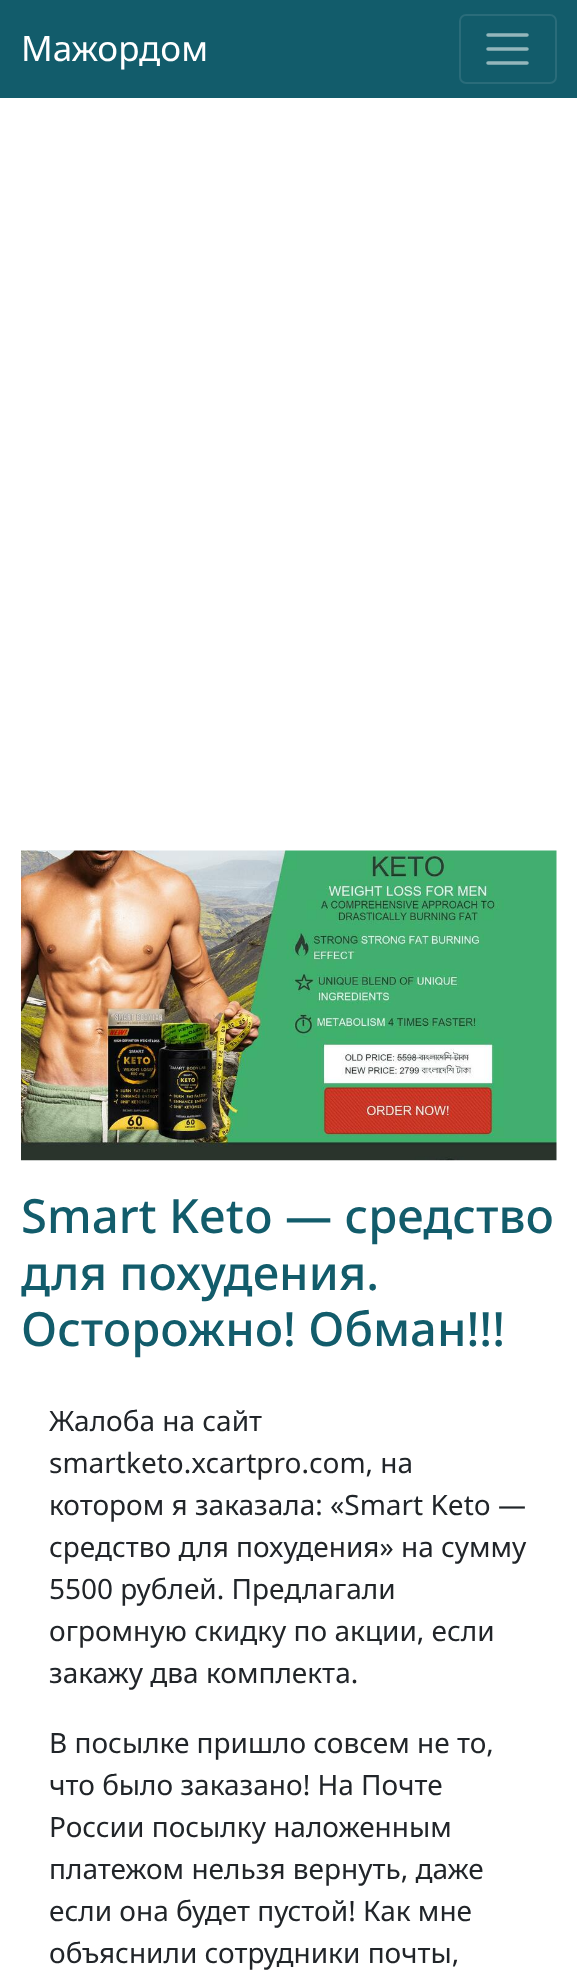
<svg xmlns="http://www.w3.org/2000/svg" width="577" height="1986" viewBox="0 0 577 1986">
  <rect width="100%" height="100%" fill="#fff"/>
  <path d="M0 0h577v98H0z" fill="#125c6b"/>
  <rect x="460" y="15" width="96" height="68" rx="6" fill="none" stroke="#2a6c7a" stroke-width="2"/>
  <path d="M488 35H527M488 49H527M488 63H527" fill="none" stroke="#94b6bc" stroke-width="3.5" stroke-linecap="round"/>
  <image x="21" y="850" width="536" height="311" href="img/1.png"/>
  <text x="21" y="61" font-family="Noto Sans" font-size="35" fill="#fff">Мажордом</text>
  <g font-family="Noto Sans" font-size="47.2" font-weight="500" fill="#125c6b">
    <text x="21" y="1233">Smart Keto — средство</text>
    <text x="21" y="1290">для похудения.</text>
    <text x="21" y="1346">Осторожно! Обман!!!</text>
  </g>
  <g font-family="Noto Sans" font-size="28" fill="#212529">
    <text x="49" y="1431">Жалоба на сайт</text>
    <text x="49" y="1473">smartketo.xcartpro.com, на</text>
    <text x="49" y="1515">котором я заказала: «Smart Keto —</text>
    <text x="49" y="1557">средство для похудения» на сумму</text>
    <text x="49" y="1599">5500 рублей. Предлагали</text>
    <text x="49" y="1641">огромную скидку по акции, если</text>
    <text x="49" y="1683">закажу два комплекта.</text>
    <text x="49" y="1753">В посылке пришло совсем не то,</text>
    <text x="49" y="1795">что было заказано! На Почте</text>
    <text x="49" y="1837">России посылку наложенным</text>
    <text x="49" y="1879">платежом нельзя вернуть, даже</text>
    <text x="49" y="1921">если она будет пустой! Как мне</text>
    <text x="49" y="1963">объяснили сотрудники почты,</text>
  </g>
</svg>
